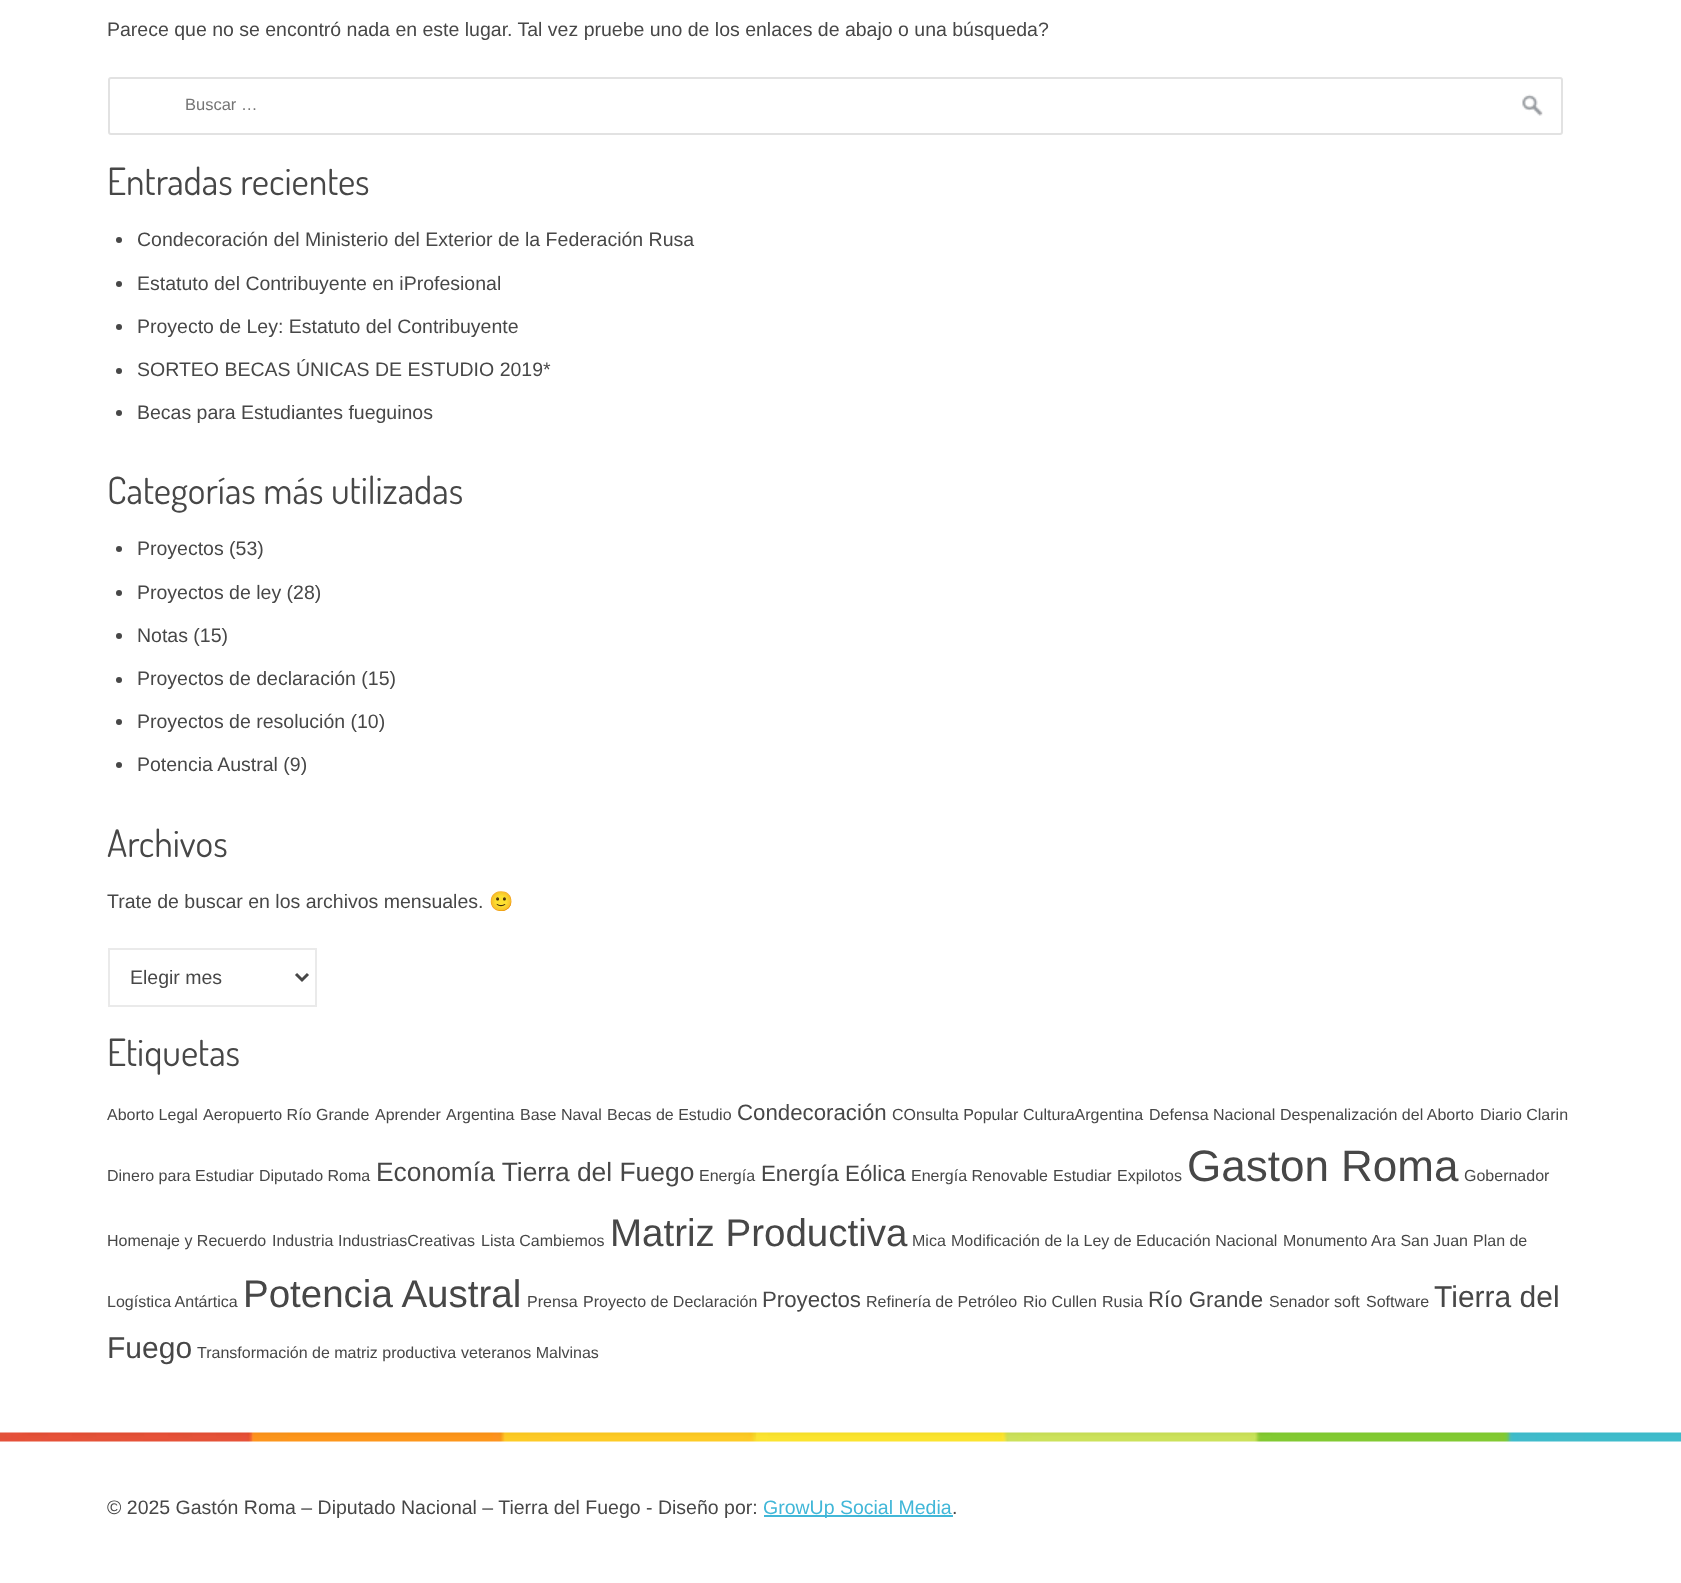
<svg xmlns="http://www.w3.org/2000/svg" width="1681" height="1583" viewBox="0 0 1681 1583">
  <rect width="100%" height="100%" fill="#fff"/>
  <image x="1522" y="94" width="21" height="22" href="img/1.png"/>
  <rect x="109" y="78" width="1453" height="56" rx="2" fill="none" stroke="#e2e2e2" stroke-width="2"/>
  <circle cx="119" cy="240" r="3" fill="#474747"/>
  <circle cx="119" cy="284" r="3" fill="#474747"/>
  <circle cx="119" cy="327" r="3" fill="#474747"/>
  <circle cx="119" cy="371" r="3" fill="#474747"/>
  <circle cx="119" cy="413" r="3" fill="#474747"/>
  <circle cx="119" cy="549" r="3" fill="#474747"/>
  <circle cx="119" cy="593" r="3" fill="#474747"/>
  <circle cx="119" cy="636" r="3" fill="#474747"/>
  <circle cx="119" cy="680" r="3" fill="#474747"/>
  <circle cx="119" cy="722" r="3" fill="#474747"/>
  <circle cx="119" cy="765" r="3" fill="#474747"/>
  <path d="M109 949h207v57H109z" fill="none" stroke="#eaeaea" stroke-width="2"/>
  <path d="M296 974L302 980L308 974" fill="none" stroke="#474747" stroke-width="3"/>
  <image x="0" y="1432" width="1681" height="10" href="img/2.png"/>
  <path d="M764 1515h189v2H764z" fill="#41b7d8"/>
  <text x="107" y="36" font-family="Liberation Sans" font-size="19.5" fill="#474747">Parece que no se encontró nada en este lugar. Tal vez pruebe uno de los enlaces de abajo o una búsqueda?</text>
  <text x="185" y="110" font-family="Liberation Sans" font-size="16.5" fill="#757575">Buscar …</text>
  <text x="107" y="195" font-family="Dosis" font-size="37.5" fill="#474747">Entradas recientes</text>
  <g font-family="Liberation Sans" font-size="19.5" fill="#474747">
    <text x="137" y="246">Condecoración del Ministerio del Exterior de la Federación Rusa</text>
    <text x="137" y="290">Estatuto del Contribuyente en iProfesional</text>
    <text x="137" y="333">Proyecto de Ley: Estatuto del Contribuyente</text>
    <text x="137" y="376">SORTEO BECAS ÚNICAS DE ESTUDIO 2019*</text>
    <text x="137" y="419">Becas para Estudiantes fueguinos</text>
  </g>
  <text x="107" y="504" font-family="Dosis" font-size="37.5" fill="#474747">Categorías más utilizadas</text>
  <g font-family="Liberation Sans" font-size="19.5" fill="#474747">
    <text x="137" y="555">Proyectos (53)</text>
    <text x="137" y="599">Proyectos de ley (28)</text>
    <text x="137" y="642">Notas (15)</text>
    <text x="137" y="685">Proyectos de declaración (15)</text>
    <text x="137" y="728">Proyectos de resolución (10)</text>
    <text x="137" y="771">Potencia Austral (9)</text>
  </g>
  <text x="107" y="857" font-family="Dosis" font-size="37.5" fill="#474747">Archivos</text>
  <text x="107" y="908" font-family="Liberation Sans" font-size="19.5" fill="#474747">Trate de buscar en los archivos mensuales.</text>
  <text x="489" y="908" font-family="Noto Color Emoji" font-size="19.5" fill="#474747">🙂</text>
  <text x="130" y="984" font-family="Liberation Sans" font-size="19.5" fill="#474747">Elegir mes</text>
  <text x="107" y="1066" font-family="Dosis" font-size="37.5" fill="#474747">Etiquetas</text>
  <g font-family="Liberation Sans" font-size="16" fill="#474747">
    <text x="107" y="1120">Aborto Legal</text>
    <text x="203" y="1120">Aeropuerto Río Grande</text>
    <text x="375" y="1120">Aprender</text>
    <text x="446" y="1120">Argentina</text>
    <text x="520" y="1120">Base Naval</text>
    <text x="607" y="1120">Becas de Estudio</text>
  </g>
  <text x="737" y="1120" font-family="Liberation Sans" font-size="22.25" fill="#474747">Condecoración</text>
  <g font-family="Liberation Sans" font-size="16" fill="#474747">
    <text x="892" y="1120">COnsulta Popular</text>
    <text x="1023" y="1120">CulturaArgentina</text>
    <text x="1149" y="1120">Defensa Nacional</text>
    <text x="1280" y="1120">Despenalización del Aborto</text>
    <text x="1480" y="1120">Diario Clarin</text>
    <text x="107" y="1181">Dinero para Estudiar</text>
    <text x="259" y="1181">Diputado Roma</text>
  </g>
  <text x="376" y="1181" font-family="Liberation Sans" font-size="26.4" fill="#474747">Economía Tierra del Fuego</text>
  <text x="699" y="1181" font-family="Liberation Sans" font-size="16" fill="#474747">Energía</text>
  <text x="761" y="1181" font-family="Liberation Sans" font-size="22.25" fill="#474747">Energía Eólica</text>
  <g font-family="Liberation Sans" font-size="16" fill="#474747">
    <text x="911" y="1181">Energía Renovable</text>
    <text x="1053" y="1181">Estudiar</text>
    <text x="1117" y="1181">Expilotos</text>
  </g>
  <text x="1187" y="1181" font-family="Liberation Sans" font-size="44" fill="#474747">Gaston Roma</text>
  <g font-family="Liberation Sans" font-size="16" fill="#474747">
    <text x="1464" y="1181">Gobernador</text>
    <text x="107" y="1246">Homenaje y Recuerdo</text>
    <text x="272" y="1246">Industria</text>
    <text x="338" y="1246">IndustriasCreativas</text>
    <text x="481" y="1246">Lista Cambiemos</text>
  </g>
  <text x="610" y="1246" font-family="Liberation Sans" font-size="38.5" fill="#474747">Matriz Productiva</text>
  <g font-family="Liberation Sans" font-size="16" fill="#474747">
    <text x="912" y="1246">Mica</text>
    <text x="951" y="1246">Modificación de la Ley de Educación Nacional</text>
    <text x="1283" y="1246">Monumento Ara San Juan</text>
    <text x="1473" y="1246">Plan de</text>
    <text x="107" y="1307">Logística Antártica</text>
  </g>
  <text x="243" y="1307" font-family="Liberation Sans" font-size="38.5" fill="#474747">Potencia Austral</text>
  <g font-family="Liberation Sans" font-size="16" fill="#474747">
    <text x="527" y="1307">Prensa</text>
    <text x="583" y="1307">Proyecto de Declaración</text>
  </g>
  <text x="762" y="1307" font-family="Liberation Sans" font-size="22.25" fill="#474747">Proyectos</text>
  <g font-family="Liberation Sans" font-size="16" fill="#474747">
    <text x="866" y="1307">Refinería de Petróleo</text>
    <text x="1023" y="1307">Rio Cullen</text>
    <text x="1102" y="1307">Rusia</text>
  </g>
  <text x="1148" y="1307" font-family="Liberation Sans" font-size="22.25" fill="#474747">Río Grande</text>
  <g font-family="Liberation Sans" font-size="16" fill="#474747">
    <text x="1269" y="1307">Senador</text>
    <text x="1334" y="1307">soft</text>
    <text x="1366" y="1307">Software</text>
  </g>
  <g font-family="Liberation Sans" font-size="30" fill="#474747">
    <text x="1434" y="1307">Tierra del</text>
    <text x="107" y="1358">Fuego</text>
  </g>
  <g font-family="Liberation Sans" font-size="16" fill="#474747">
    <text x="197" y="1358">Transformación de matriz productiva</text>
    <text x="461" y="1358">veteranos Malvinas</text>
  </g>
  <text x="107" y="1514" font-family="Liberation Sans" font-size="19.5" fill="#474747">© 2025 Gastón Roma – Diputado Nacional – Tierra del Fuego - Diseño por:</text>
  <text x="763" y="1514" font-family="Liberation Sans" font-size="19.5" fill="#41b7d8">GrowUp Social Media</text>
  <text x="952" y="1514" font-family="Liberation Sans" font-size="19.5" fill="#474747">.</text>
</svg>
